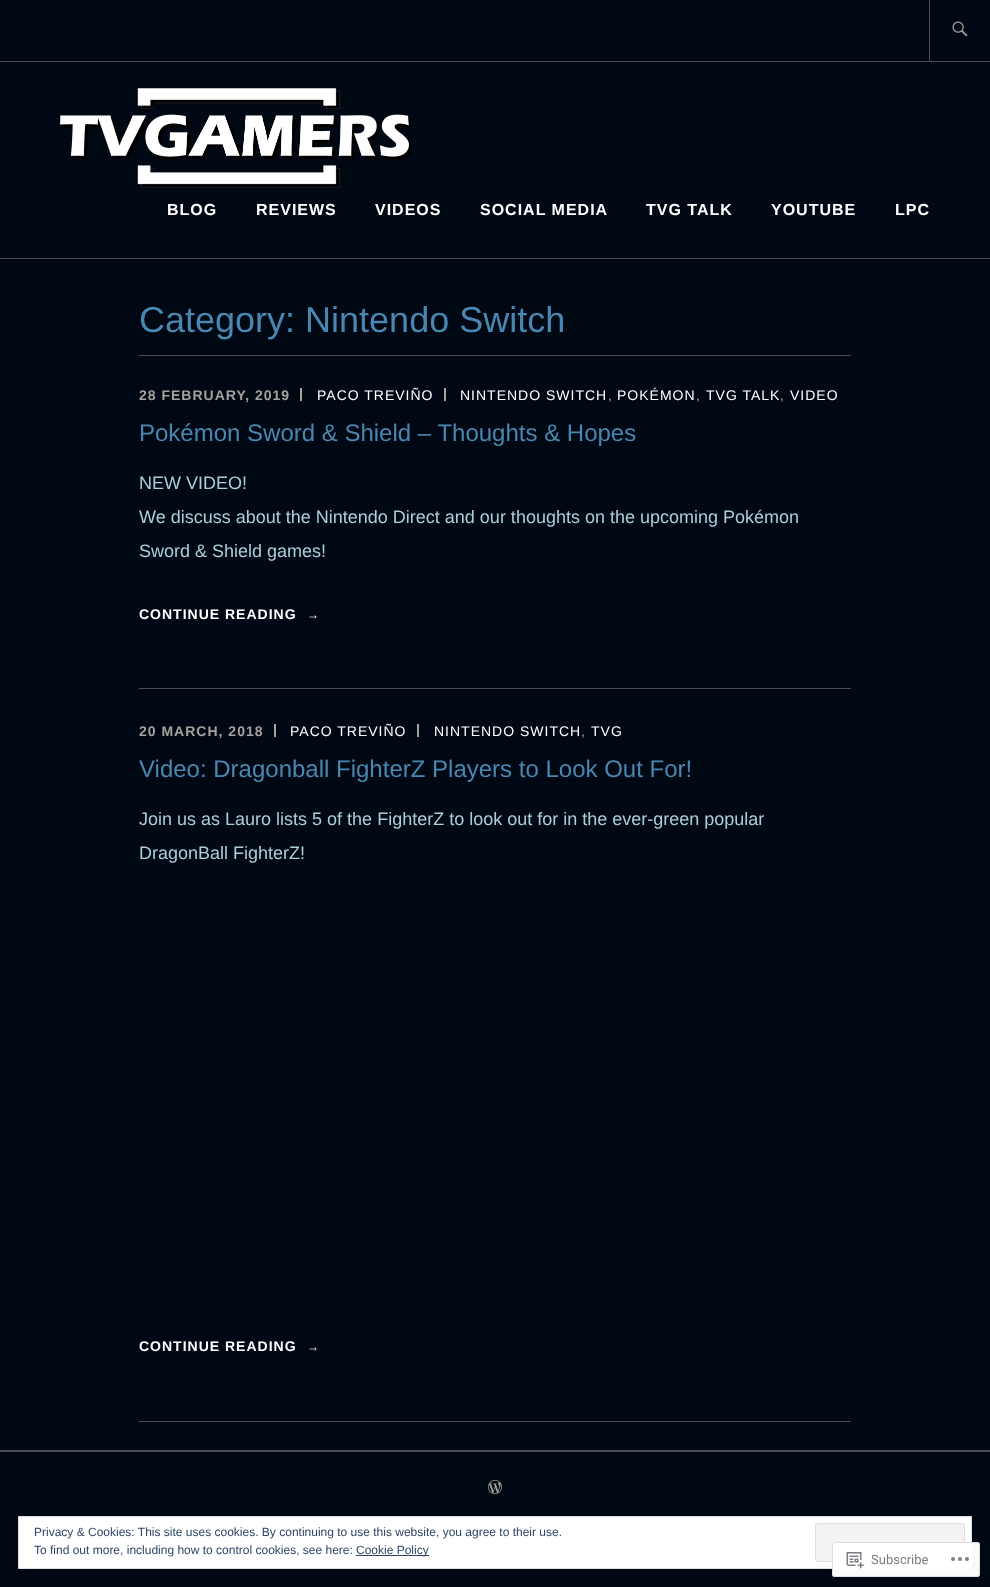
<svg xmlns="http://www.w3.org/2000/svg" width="990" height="1587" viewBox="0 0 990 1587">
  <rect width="100%" height="100%" fill="#000814"/>
  <path d="M0 258h990v1H0z" fill="#474c54"/>
  <path d="M0 61h990v1H0z" fill="#474c54"/>
  <path d="M929 0h1v61H929z" fill="#474c54"/>
  <image x="952" y="21" width="16" height="16" href="img/1.png"/>
  <image x="60" y="88" width="353" height="100" href="img/2.png"/>
  <path d="M139 355h712v1H139z" fill="#474c54"/>
  <path d="M139 688h712v1H139z" fill="#474c54"/>
  <path d="M300 388h2v13H300z" fill="#a5a29d"/>
  <path d="M444 388h2v13H444z" fill="#a5a29d"/>
  <path d="M139 1421h712v1H139z" fill="#474c54"/>
  <path d="M274 724h2v13H274z" fill="#a5a29d"/>
  <path d="M417 724h2v13H417z" fill="#a5a29d"/>
  <path d="M0 1450h990v2H0z" fill="#474c54"/>
  <image x="488" y="1480" width="14" height="14" href="img/3.png"/>
  <path d="M18.5 1516.5h953v52H18.5z" fill="#fff" stroke="#dedede"/>
  <rect x="815.5" y="1523.5" width="149" height="38" rx="2.5" fill="#f3f3f3" stroke="#dedede"/>
  <path d="M356 1555h73v1H356z" fill="#2e4467"/>
  <rect x="832" y="1542" width="148" height="35" rx="3" fill="#fffffffa"/>
  <rect x="832.5" y="1542.5" width="147" height="34" rx="2.5" fill="none" stroke="#dcdcdefa"/>
  <image x="846" y="1552" width="18" height="17" href="img/4.png"/>
  <image x="951" y="1557" width="18" height="4" href="img/5.png"/>
  <g font-family="Arimo" font-size="16" font-weight="bold" letter-spacing="1" fill="#fff">
    <text x="167" y="215">BLOG</text>
    <text x="256" y="215">REVIEWS</text>
    <text x="375" y="215">VIDEOS</text>
    <text x="480" y="215">SOCIAL MEDIA</text>
    <text x="646" y="215">TVG TALK</text>
    <text x="771" y="215">YOUTUBE</text>
    <text x="895" y="215">LPC</text>
  </g>
  <text x="139" y="332" font-family="Arimo" font-size="36" fill="#4987b0">Category: Nintendo Switch</text>
  <text x="139" y="400" font-family="Arimo" font-size="14" font-weight="bold" letter-spacing="1" fill="#a5a29d">28 FEBRUARY, 2019</text>
  <g font-family="Arimo" font-size="14" letter-spacing="1" fill="#fff">
    <text x="317" y="400">PACO TREVIÑO</text>
    <text x="460" y="400">NINTENDO SWITCH</text>
  </g>
  <text x="608" y="400" font-family="Arimo" font-size="14" letter-spacing="1" fill="#a5a29d">,</text>
  <text x="617" y="400" font-family="Arimo" font-size="14" letter-spacing="1" fill="#fff">POKÉMON</text>
  <text x="696" y="400" font-family="Arimo" font-size="14" letter-spacing="1" fill="#a5a29d">,</text>
  <text x="706" y="400" font-family="Arimo" font-size="14" letter-spacing="1" fill="#fff">TVG TALK</text>
  <text x="780" y="400" font-family="Arimo" font-size="14" letter-spacing="1" fill="#a5a29d">,</text>
  <text x="790" y="400" font-family="Arimo" font-size="14" letter-spacing="1" fill="#fff">VIDEO</text>
  <text x="139" y="441" font-family="Arimo" font-size="24" fill="#4987b0">Pokémon Sword &amp; Shield – Thoughts &amp; Hopes</text>
  <g font-family="Arimo" font-size="18" fill="#abced7">
    <text x="139" y="489">NEW VIDEO!</text>
    <text x="139" y="523">We discuss about the Nintendo Direct and our thoughts on the upcoming Pokémon</text>
    <text x="139" y="557">Sword &amp; Shield games!</text>
  </g>
  <text x="139" y="619" font-family="Arimo" font-size="14" font-weight="bold" letter-spacing="1" fill="#fff">CONTINUE READING</text>
  <text x="307" y="619" font-family="Liberation Sans" font-size="12" font-weight="bold" letter-spacing="1" fill="#fff">→</text>
  <text x="139" y="736" font-family="Arimo" font-size="14" font-weight="bold" letter-spacing="1" fill="#a5a29d">20 MARCH, 2018</text>
  <g font-family="Arimo" font-size="14" letter-spacing="1" fill="#fff">
    <text x="290" y="736">PACO TREVIÑO</text>
    <text x="434" y="736">NINTENDO SWITCH</text>
  </g>
  <text x="581" y="736" font-family="Arimo" font-size="14" letter-spacing="1" fill="#a5a29d">,</text>
  <text x="591" y="736" font-family="Arimo" font-size="14" letter-spacing="1" fill="#fff">TVG</text>
  <text x="139" y="777" font-family="Arimo" font-size="24" fill="#4987b0">Video: Dragonball FighterZ Players to Look Out For!</text>
  <g font-family="Arimo" font-size="18" fill="#abced7">
    <text x="139" y="825">Join us as Lauro lists 5 of the FighterZ to look out for in the ever-green popular</text>
    <text x="139" y="859">DragonBall FighterZ!</text>
  </g>
  <text x="139" y="1351" font-family="Arimo" font-size="14" font-weight="bold" letter-spacing="1" fill="#fff">CONTINUE READING</text>
  <text x="307" y="1351" font-family="Liberation Sans" font-size="12" font-weight="bold" letter-spacing="1" fill="#fff">→</text>
  <g font-family="Arimo" font-size="12" fill="#2e4467">
    <text x="34" y="1536">Privacy &amp; Cookies: This site uses cookies. By continuing to use this website, you agree to their use.</text>
    <text x="34" y="1554">To find out more, including how to control cookies, see here:</text>
    <text x="356" y="1554">Cookie Policy</text>
  </g>
  <text x="871" y="1564" font-family="Roboto" font-size="13" fill="#7b7f84">Subscribe</text>
</svg>
